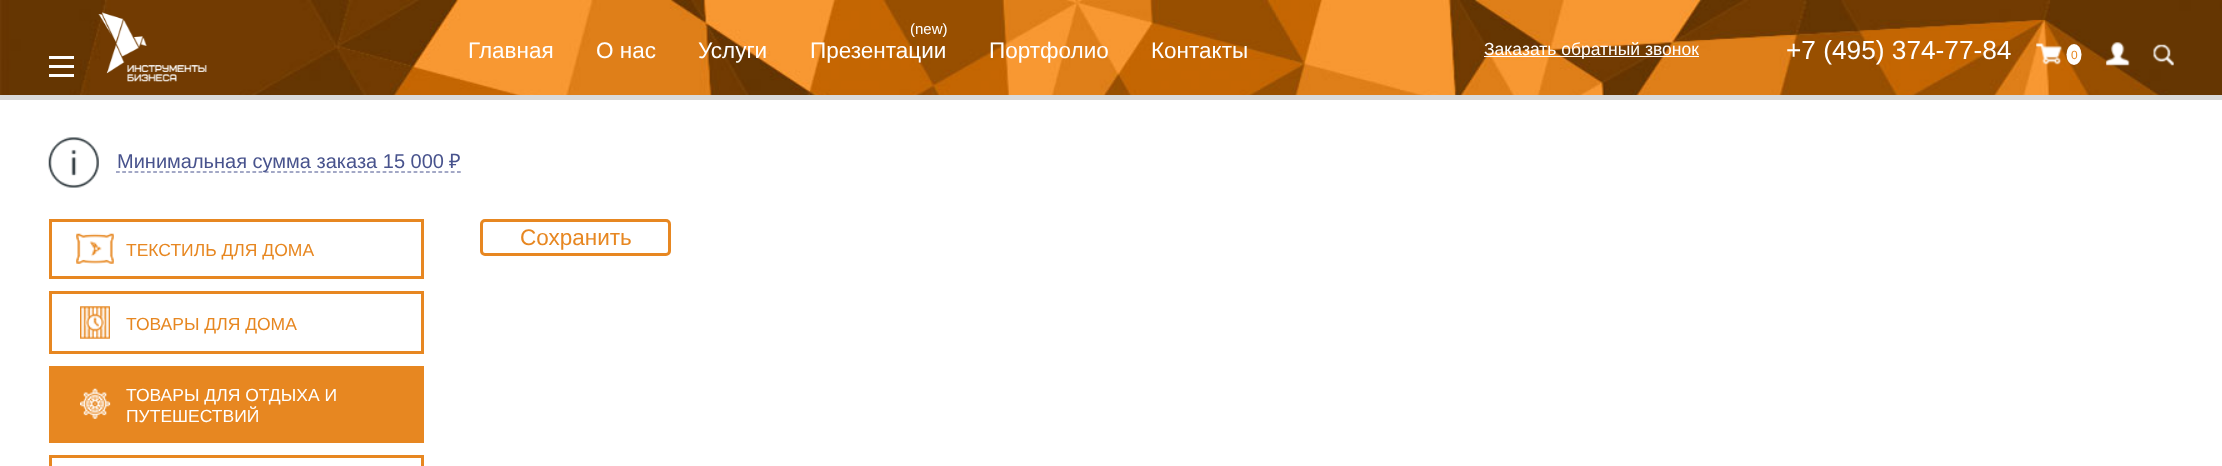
<svg xmlns="http://www.w3.org/2000/svg" width="2222" height="466" viewBox="0 0 2222 466">
  <rect width="100%" height="100%" fill="#fff"/>
  <image x="0" y="0" width="2222" height="95" href="img/1.png"/>
  <path d="M0 95h2222v5H0z" fill="#dadada"/>
  <path d="M49 56h25v3H49z" fill="#fff"/>
  <path d="M49 65h25v3H49z" fill="#fff"/>
  <path d="M49 74h25v3H49z" fill="#fff"/>
  <image x="98" y="12" width="109" height="70" href="img/2.png"/>
  <path d="M1484 56h215v1H1484z" fill="#fff"/>
  <image x="2036" y="43" width="26" height="22" href="img/3.png"/>
  <ellipse cx="2074" cy="54.5" rx="7.5" ry="10.5" fill="#fff"/>
  <image x="2106" y="42" width="24" height="24" href="img/4.png"/>
  <image x="2153" y="44" width="21" height="22" href="img/5.png"/>
  <image x="48" y="137" width="51" height="51" href="img/6.png"/>
  <path d="M116 172H461" fill="none" stroke="#48538d" stroke-width="1.2" stroke-dasharray="3.75 2.45"/>
  <rect x="481.5" y="220.5" width="188" height="34" rx="3.5" fill="none" stroke="#e78721" stroke-width="3"/>
  <path d="M50.5 220.5h372v57H50.5z" fill="none" stroke="#e78721" stroke-width="3"/>
  <image x="76" y="233" width="38" height="31" href="img/7.png"/>
  <path d="M50.5 292.5h372v60H50.5z" fill="none" stroke="#e78721" stroke-width="3"/>
  <image x="80" y="306" width="30" height="33" href="img/8.png"/>
  <path d="M49 366h375v77H49z" fill="#e78721"/>
  <image x="80" y="388" width="31" height="31" href="img/9.png"/>
  <path d="M50.5 456.5h372v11H50.5z" fill="none" stroke="#e78721" stroke-width="3"/>
  <g font-family="Liberation Sans" font-size="22.5" fill="#fff">
    <text x="468" y="58">Главная</text>
    <text x="596" y="58">О нас</text>
    <text x="698" y="58">Услуги</text>
  </g>
  <text x="910" y="34" font-family="Liberation Sans" font-size="15" fill="#fff">(new)</text>
  <g font-family="Liberation Sans" font-size="22.5" fill="#fff">
    <text x="810" y="58">Презентации</text>
    <text x="989" y="58">Портфолио</text>
    <text x="1151" y="58">Контакты</text>
  </g>
  <text x="1484" y="55" font-family="Liberation Sans" font-size="17.5" fill="#fff">Заказать обратный звонок</text>
  <text x="1786" y="59" font-family="Liberation Sans" font-size="26.25" fill="#fff">+7 (495) 374-77-84</text>
  <text x="2071" y="59" font-family="Liberation Sans" font-size="12" fill="#e78721">0</text>
  <text x="117" y="168" font-family="Liberation Sans" font-size="20" fill="#48538d">Минимальная сумма заказа 15 000</text>
  <text x="449" y="168" font-family="Noto Sans" font-size="20" fill="#48538d">₽</text>
  <text x="520" y="245" font-family="Liberation Sans" font-size="22.5" fill="#e78721">Сохранить</text>
  <g font-family="Liberation Sans" font-size="17.5" fill="#e78721">
    <text x="126" y="256">ТЕКСТИЛЬ ДЛЯ ДОМА</text>
    <text x="126" y="330">ТОВАРЫ ДЛЯ ДОМА</text>
  </g>
  <g font-family="Liberation Sans" font-size="17.5" fill="#fff">
    <text x="126" y="401">ТОВАРЫ ДЛЯ ОТДЫХА И</text>
    <text x="126" y="422">ПУТЕШЕСТВИЙ</text>
  </g>
</svg>
